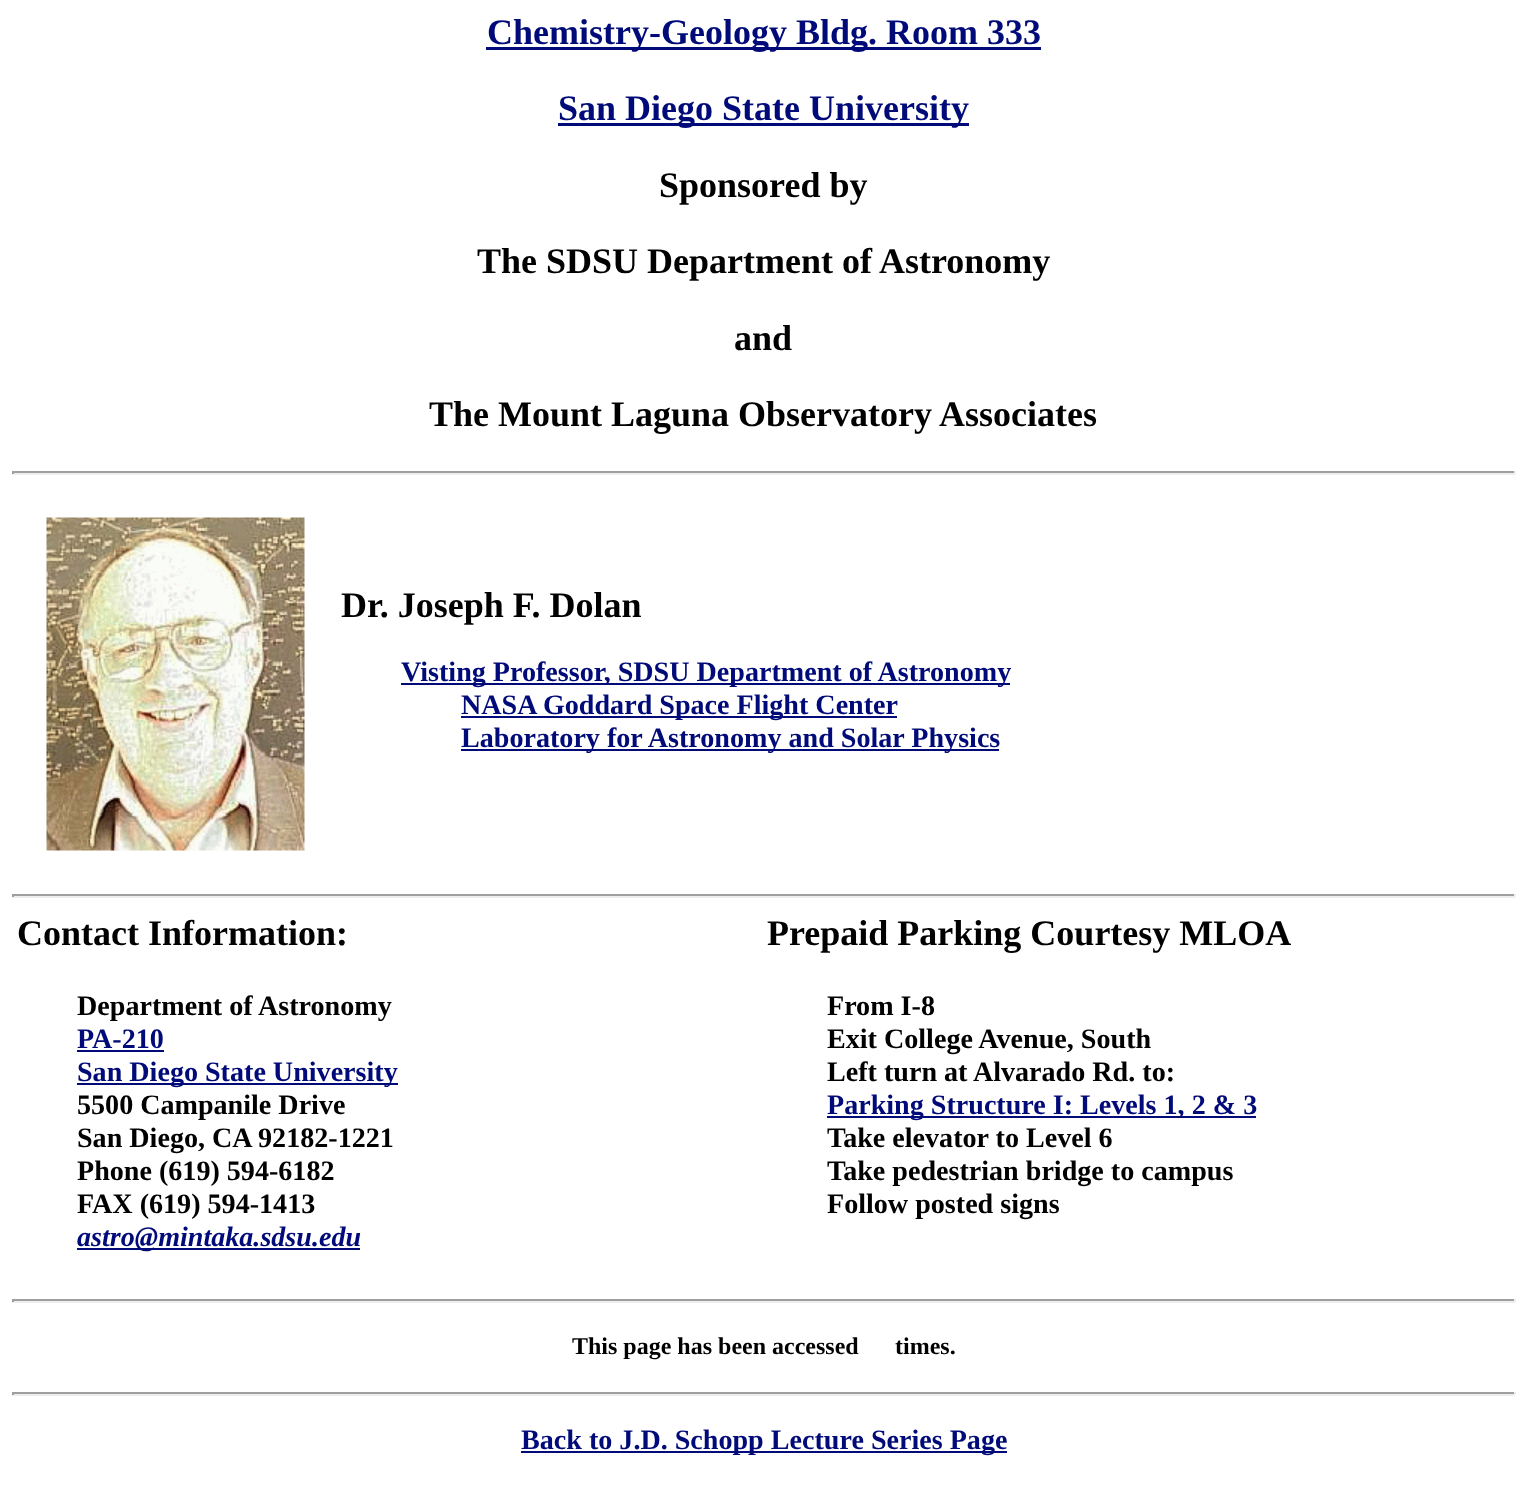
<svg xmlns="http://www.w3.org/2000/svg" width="1527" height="1501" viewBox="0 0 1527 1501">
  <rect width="100%" height="100%" fill="#fff"/>
  <path d="M486 47h555v3H486z" fill="#000a78"/>
  <path d="M558 123h411v3H558z" fill="#000a78"/>
  <path d="M12 471h1503v2H12z" fill="#9f9f9f"/>
  <path d="M1514 471h2v3H1514z" fill="#eee"/>
  <path d="M12 473h1503v2H12z" fill="#eee"/>
  <path d="M12 471h2v3H12z" fill="#9f9f9f"/>
  <image x="46" y="517" width="259" height="334" href="img/1.png"/>
  <path d="M401 683h609v2H401z" fill="#000a78"/>
  <path d="M461 716h436v2H461z" fill="#000a78"/>
  <path d="M461 749h538v2H461z" fill="#000a78"/>
  <path d="M12 894h1503v2H12z" fill="#9f9f9f"/>
  <path d="M1514 894h2v3H1514z" fill="#eee"/>
  <path d="M12 896h1503v2H12z" fill="#eee"/>
  <path d="M12 894h2v3H12z" fill="#9f9f9f"/>
  <path d="M77 1050h87v2H77z" fill="#000a78"/>
  <path d="M77 1083h321v2H77z" fill="#000a78"/>
  <path d="M77 1248h283v2H77z" fill="#000a78"/>
  <path d="M827 1116h429v2H827z" fill="#000a78"/>
  <path d="M12 1299h1503v2H12z" fill="#9f9f9f"/>
  <path d="M1514 1299h2v3H1514z" fill="#eee"/>
  <path d="M12 1301h1503v2H12z" fill="#eee"/>
  <path d="M12 1299h2v3H12z" fill="#9f9f9f"/>
  <path d="M12 1392h1503v2H12z" fill="#9f9f9f"/>
  <path d="M1514 1392h2v3H1514z" fill="#eee"/>
  <path d="M12 1394h1503v2H12z" fill="#eee"/>
  <path d="M12 1392h2v3H12z" fill="#9f9f9f"/>
  <path d="M521 1451h486v2H521z" fill="#000a78"/>
  <g font-family="Liberation Serif" font-size="36" font-weight="bold" fill="#000a78">
    <text x="487" y="44">Chemistry-Geology Bldg. Room 333</text>
    <text x="558" y="120">San Diego State University</text>
  </g>
  <g font-family="Liberation Serif" font-size="36" font-weight="bold" fill="#000">
    <text x="659" y="197">Sponsored by</text>
    <text x="477" y="273">The SDSU Department of Astronomy</text>
    <text x="734" y="350">and</text>
    <text x="429" y="426">The Mount Laguna Observatory Associates</text>
    <text x="341" y="617">Dr. Joseph F. Dolan</text>
  </g>
  <g font-family="Liberation Serif" font-size="28.1" font-weight="bold" fill="#000a78">
    <text x="401" y="681">Visting Professor, SDSU Department of Astronomy</text>
    <text x="461" y="714">NASA Goddard Space Flight Center</text>
    <text x="461" y="747">Laboratory for Astronomy and Solar Physics</text>
  </g>
  <g font-family="Liberation Serif" font-size="36" font-weight="bold" fill="#000">
    <text x="17" y="945">Contact Information:</text>
    <text x="767" y="945">Prepaid Parking Courtesy MLOA</text>
  </g>
  <text x="77" y="1015" font-family="Liberation Serif" font-size="28.1" font-weight="bold" fill="#000">Department of Astronomy</text>
  <g font-family="Liberation Serif" font-size="28.1" font-weight="bold" fill="#000a78">
    <text x="77" y="1048">PA-210</text>
    <text x="77" y="1081">San Diego State University</text>
  </g>
  <g font-family="Liberation Serif" font-size="28.1" font-weight="bold" fill="#000">
    <text x="77" y="1114">5500 Campanile Drive</text>
    <text x="77" y="1147">San Diego, CA 92182-1221</text>
    <text x="77" y="1180">Phone (619) 594-6182</text>
    <text x="77" y="1213">FAX (619) 594-1413</text>
  </g>
  <text x="77" y="1246" font-family="Liberation Serif" font-size="28.1" font-weight="bold" font-style="italic" fill="#000a78">astro@mintaka.sdsu.edu</text>
  <g font-family="Liberation Serif" font-size="28.1" font-weight="bold" fill="#000">
    <text x="827" y="1015">From I-8</text>
    <text x="827" y="1048">Exit College Avenue, South</text>
    <text x="827" y="1081">Left turn at Alvarado Rd. to:</text>
  </g>
  <text x="827" y="1114" font-family="Liberation Serif" font-size="28.1" font-weight="bold" fill="#000a78">Parking Structure I: Levels 1, 2 &amp; 3</text>
  <g font-family="Liberation Serif" font-size="28.1" font-weight="bold" fill="#000">
    <text x="827" y="1147">Take elevator to Level 6</text>
    <text x="827" y="1180">Take pedestrian bridge to campus</text>
    <text x="827" y="1213">Follow posted signs</text>
  </g>
  <g font-family="Liberation Serif" font-size="24" font-weight="bold" fill="#000">
    <text x="572" y="1354">This page has been accessed</text>
    <text x="895" y="1354">times.</text>
  </g>
  <text x="521" y="1449" font-family="Liberation Serif" font-size="28.1" font-weight="bold" fill="#000a78">Back to J.D. Schopp Lecture Series Page</text>
</svg>
